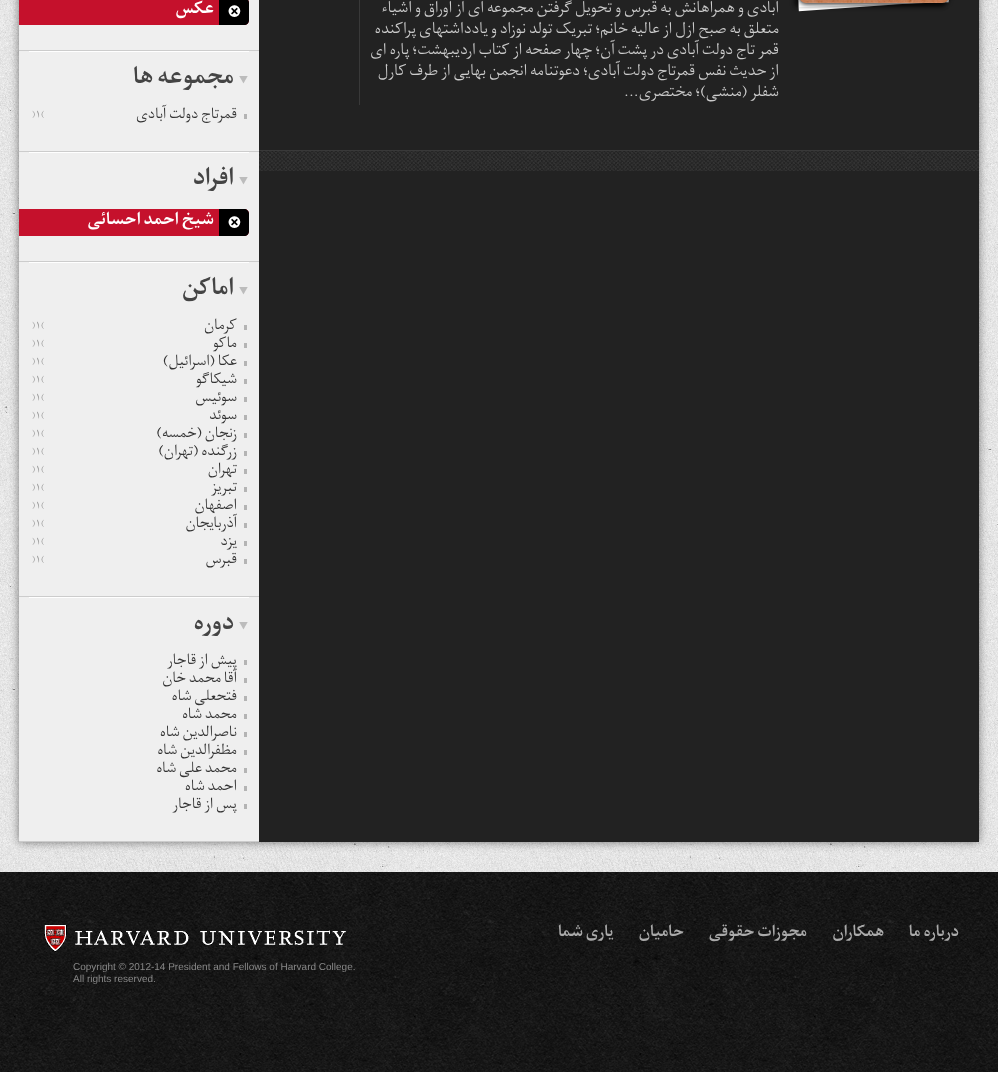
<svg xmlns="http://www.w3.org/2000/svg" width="998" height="1072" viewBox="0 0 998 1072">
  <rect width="100%" height="100%" fill="#fff"/>
  <image x="0" y="0" width="998" height="872" href="img/1.png"/>
  <path d="M19 -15h960v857H19z" fill="#00000080" filter="blur(5px)"/>
  <path d="M259 0h720v842H259z" fill="#222"/>
  <path d="M19 0h240v841H19z" fill="#efefef"/>
  <path d="M259 150h720v1H259z" fill="#393939"/>
  <rect x="794" y="-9" width="150" height="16" rx="3" fill="#00000066" filter="blur(2px)"/>
  <path d="M794-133.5L933.5-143.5L943.5-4L803.5 6Z" fill="none" stroke="#fff" stroke-width="10"/>
  <rect x="796" y="-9" width="150" height="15" rx="3" fill="#00000066" filter="blur(2px)"/>
  <path d="M799-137.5L939-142.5L943.5-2.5L804 2Z" fill="none" stroke="#fff" stroke-width="10"/>
  <rect x="799" y="-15" width="150" height="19" rx="7" fill="#000000e6" filter="blur(2.5px)"/>
  <image x="800" y="0" width="148" height="3" href="img/2.png"/>
  <path d="M359 0h1v105H359z" fill="#393939"/>
  <image x="259" y="151" width="720" height="20" href="img/3.png"/>
  <path d="M19 50h240v1H19z" fill="#ccc"/>
  <path d="M19-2H244C247-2 249 0 249 3V20C249 23 247 25 244 25H19Z" fill="#c5112c"/>
  <path d="M219-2H244C247-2 249 0 249 3V20C249 23 247 25 244 25H219Z" fill="#000"/>
  <image x="239" y="76" width="9" height="8" href="img/4.png"/>
  <path d="M29 51h220v1H29z" fill="#fff"/>
  <path d="M19 151h240v1H19z" fill="#ccc"/>
  <path d="M244 114h3v5H244z" fill="#b4b4b4"/>
  <image x="239" y="177" width="9" height="8" href="img/4.png"/>
  <path d="M29 152h220v1H29z" fill="#fff"/>
  <path d="M19 261h240v1H19z" fill="#ccc"/>
  <path d="M19 209H244C247 209 249 211 249 214V231C249 234 247 236 244 236H19Z" fill="#c5112c"/>
  <path d="M219 209H244C247 209 249 211 249 214V231C249 234 247 236 244 236H219Z" fill="#000"/>
  <image x="239" y="287" width="9" height="8" href="img/4.png"/>
  <path d="M29 262h220v1H29z" fill="#fff"/>
  <path d="M19 596h240v1H19z" fill="#ccc"/>
  <path d="M244 325h3v5H244z" fill="#b4b4b4"/>
  <path d="M244 343h3v5H244z" fill="#b4b4b4"/>
  <path d="M244 361h3v5H244z" fill="#b4b4b4"/>
  <path d="M244 379h3v5H244z" fill="#b4b4b4"/>
  <path d="M244 397h3v5H244z" fill="#b4b4b4"/>
  <path d="M244 415h3v5H244z" fill="#b4b4b4"/>
  <path d="M244 433h3v5H244z" fill="#b4b4b4"/>
  <path d="M244 451h3v5H244z" fill="#b4b4b4"/>
  <path d="M244 469h3v5H244z" fill="#b4b4b4"/>
  <path d="M244 487h3v5H244z" fill="#b4b4b4"/>
  <path d="M244 505h3v5H244z" fill="#b4b4b4"/>
  <path d="M244 523h3v5H244z" fill="#b4b4b4"/>
  <path d="M244 541h3v5H244z" fill="#b4b4b4"/>
  <path d="M244 559h3v5H244z" fill="#b4b4b4"/>
  <image x="239" y="622" width="9" height="8" href="img/4.png"/>
  <path d="M29 597h220v1H29z" fill="#fff"/>
  <path d="M19 841h240v1H19z" fill="#ccc"/>
  <path d="M244 660h3v5H244z" fill="#b4b4b4"/>
  <path d="M244 678h3v5H244z" fill="#b4b4b4"/>
  <path d="M244 696h3v5H244z" fill="#b4b4b4"/>
  <path d="M244 714h3v5H244z" fill="#b4b4b4"/>
  <path d="M244 732h3v5H244z" fill="#b4b4b4"/>
  <path d="M244 750h3v5H244z" fill="#b4b4b4"/>
  <path d="M244 768h3v5H244z" fill="#b4b4b4"/>
  <path d="M244 786h3v5H244z" fill="#b4b4b4"/>
  <path d="M244 804h3v5H244z" fill="#b4b4b4"/>
  <image x="0" y="872" width="998" height="200" href="img/5.png"/>
  <image x="44" y="925" width="302" height="27" href="img/6.png"/>
  <g font-family="'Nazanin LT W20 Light'" font-size="17" font-weight="300" direction="rtl" fill="#ccc">
    <text x="779" y="12">آبادی و همراهانش به قبرس و تحویل گرفتن مجموعه ای از اوراق و اشیاء</text>
    <text x="779" y="33">متعلق به صبح ازل از عالیه خانم؛ تبریک تولد نوزاد و یادداشتهای پراکنده</text>
    <text x="779" y="54">قمر تاج دولت آبادی در پشت آن؛ چهار صفحه از کتاب اردیبهشت؛ پاره ای</text>
    <text x="779" y="75">از حدیث نفس قمرتاج دولت آبادی؛ دعوتنامه انجمن بهایی از طرف کارل</text>
    <text x="779" y="96">شفلر (منشی)؛ مختصری...</text>
  </g>
  <text x="228" y="15" font-family="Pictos" font-size="14" fill="#fff">D</text>
  <text x="214" y="13" font-family="'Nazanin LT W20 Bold'" font-size="18" font-weight="bold" direction="rtl" fill="#fff">عکس</text>
  <text x="234" y="83" font-family="'Nazanin LT W20 Bold'" font-size="25" font-weight="bold" direction="rtl" fill="#444">مجموعه ها</text>
  <text x="237" y="118" font-family="'Nazanin LT W20 Light'" font-size="16" font-weight="300" direction="rtl" fill="#333">قمرتاج دولت آبادی</text>
  <text x="32" y="117" font-family="'Nazanin LT W20 Light'" font-size="10" font-weight="300" fill="#999">)۱(</text>
  <text x="234" y="184" font-family="'Nazanin LT W20 Bold'" font-size="25" font-weight="bold" direction="rtl" fill="#444">افراد</text>
  <text x="228" y="226" font-family="Pictos" font-size="14" fill="#fff">D</text>
  <text x="214" y="224" font-family="'Nazanin LT W20 Bold'" font-size="18" font-weight="bold" direction="rtl" fill="#fff">شیخ احمد احسائی</text>
  <text x="234" y="294" font-family="'Nazanin LT W20 Bold'" font-size="25" font-weight="bold" direction="rtl" fill="#444">اماکن</text>
  <text x="237" y="329" font-family="'Nazanin LT W20 Light'" font-size="16" font-weight="300" direction="rtl" fill="#333">کرمان</text>
  <text x="32" y="328" font-family="'Nazanin LT W20 Light'" font-size="10" font-weight="300" fill="#999">)۱(</text>
  <text x="237" y="347" font-family="'Nazanin LT W20 Light'" font-size="16" font-weight="300" direction="rtl" fill="#333">ماکو</text>
  <text x="32" y="346" font-family="'Nazanin LT W20 Light'" font-size="10" font-weight="300" fill="#999">)۱(</text>
  <text x="237" y="365" font-family="'Nazanin LT W20 Light'" font-size="16" font-weight="300" direction="rtl" fill="#333">عکا (اسرائیل)</text>
  <text x="32" y="364" font-family="'Nazanin LT W20 Light'" font-size="10" font-weight="300" fill="#999">)۱(</text>
  <text x="237" y="383" font-family="'Nazanin LT W20 Light'" font-size="16" font-weight="300" direction="rtl" fill="#333">شیکاگو</text>
  <text x="32" y="382" font-family="'Nazanin LT W20 Light'" font-size="10" font-weight="300" fill="#999">)۱(</text>
  <text x="237" y="401" font-family="'Nazanin LT W20 Light'" font-size="16" font-weight="300" direction="rtl" fill="#333">سوئیس</text>
  <text x="32" y="400" font-family="'Nazanin LT W20 Light'" font-size="10" font-weight="300" fill="#999">)۱(</text>
  <text x="237" y="419" font-family="'Nazanin LT W20 Light'" font-size="16" font-weight="300" direction="rtl" fill="#333">سوئد</text>
  <text x="32" y="418" font-family="'Nazanin LT W20 Light'" font-size="10" font-weight="300" fill="#999">)۱(</text>
  <text x="237" y="437" font-family="'Nazanin LT W20 Light'" font-size="16" font-weight="300" direction="rtl" fill="#333">زنجان (خمسه)</text>
  <text x="32" y="436" font-family="'Nazanin LT W20 Light'" font-size="10" font-weight="300" fill="#999">)۱(</text>
  <text x="237" y="455" font-family="'Nazanin LT W20 Light'" font-size="16" font-weight="300" direction="rtl" fill="#333">زرگنده (تهران)</text>
  <text x="32" y="454" font-family="'Nazanin LT W20 Light'" font-size="10" font-weight="300" fill="#999">)۱(</text>
  <text x="237" y="473" font-family="'Nazanin LT W20 Light'" font-size="16" font-weight="300" direction="rtl" fill="#333">تهران</text>
  <text x="32" y="472" font-family="'Nazanin LT W20 Light'" font-size="10" font-weight="300" fill="#999">)۱(</text>
  <text x="237" y="491" font-family="'Nazanin LT W20 Light'" font-size="16" font-weight="300" direction="rtl" fill="#333">تبریز</text>
  <text x="32" y="490" font-family="'Nazanin LT W20 Light'" font-size="10" font-weight="300" fill="#999">)۱(</text>
  <text x="237" y="509" font-family="'Nazanin LT W20 Light'" font-size="16" font-weight="300" direction="rtl" fill="#333">اصفهان</text>
  <text x="32" y="508" font-family="'Nazanin LT W20 Light'" font-size="10" font-weight="300" fill="#999">)۱(</text>
  <text x="237" y="527" font-family="'Nazanin LT W20 Light'" font-size="16" font-weight="300" direction="rtl" fill="#333">آذربایجان</text>
  <text x="32" y="526" font-family="'Nazanin LT W20 Light'" font-size="10" font-weight="300" fill="#999">)۱(</text>
  <text x="237" y="545" font-family="'Nazanin LT W20 Light'" font-size="16" font-weight="300" direction="rtl" fill="#333">یزد</text>
  <text x="32" y="544" font-family="'Nazanin LT W20 Light'" font-size="10" font-weight="300" fill="#999">)۱(</text>
  <text x="237" y="563" font-family="'Nazanin LT W20 Light'" font-size="16" font-weight="300" direction="rtl" fill="#333">قبرس</text>
  <text x="32" y="562" font-family="'Nazanin LT W20 Light'" font-size="10" font-weight="300" fill="#999">)۱(</text>
  <text x="234" y="629" font-family="'Nazanin LT W20 Bold'" font-size="25" font-weight="bold" direction="rtl" fill="#444">دوره</text>
  <g font-family="'Nazanin LT W20 Light'" font-size="16" font-weight="300" direction="rtl" fill="#333">
    <text x="237" y="664">پیش از قاجار</text>
    <text x="237" y="682">آقا محمد خان</text>
    <text x="237" y="700">فتحعلی شاه</text>
    <text x="237" y="718">محمد شاه</text>
    <text x="237" y="736">ناصرالدين شاه</text>
    <text x="237" y="754">مظفرالدين شاه</text>
    <text x="237" y="772">محمد علی شاه</text>
    <text x="237" y="790">احمد شاه</text>
    <text x="237" y="808">پس از قاجار</text>
  </g>
  <g font-family="'Nazanin LT W20 Bold'" font-size="17" font-weight="bold" direction="rtl" fill="#aaa">
    <text x="959" y="936">درباره ما</text>
    <text x="884" y="936">همکاران</text>
    <text x="807" y="936">مجوزات حقوقی</text>
    <text x="684" y="936">حامیان</text>
    <text x="614" y="936">یاری شما</text>
  </g>
  <g font-family="Liberation Sans" font-size="10" fill="#888">
    <text x="73" y="970">Copyright © 2012-14 President and Fellows of Harvard College.</text>
    <text x="73" y="982">All rights reserved.</text>
  </g>
</svg>
